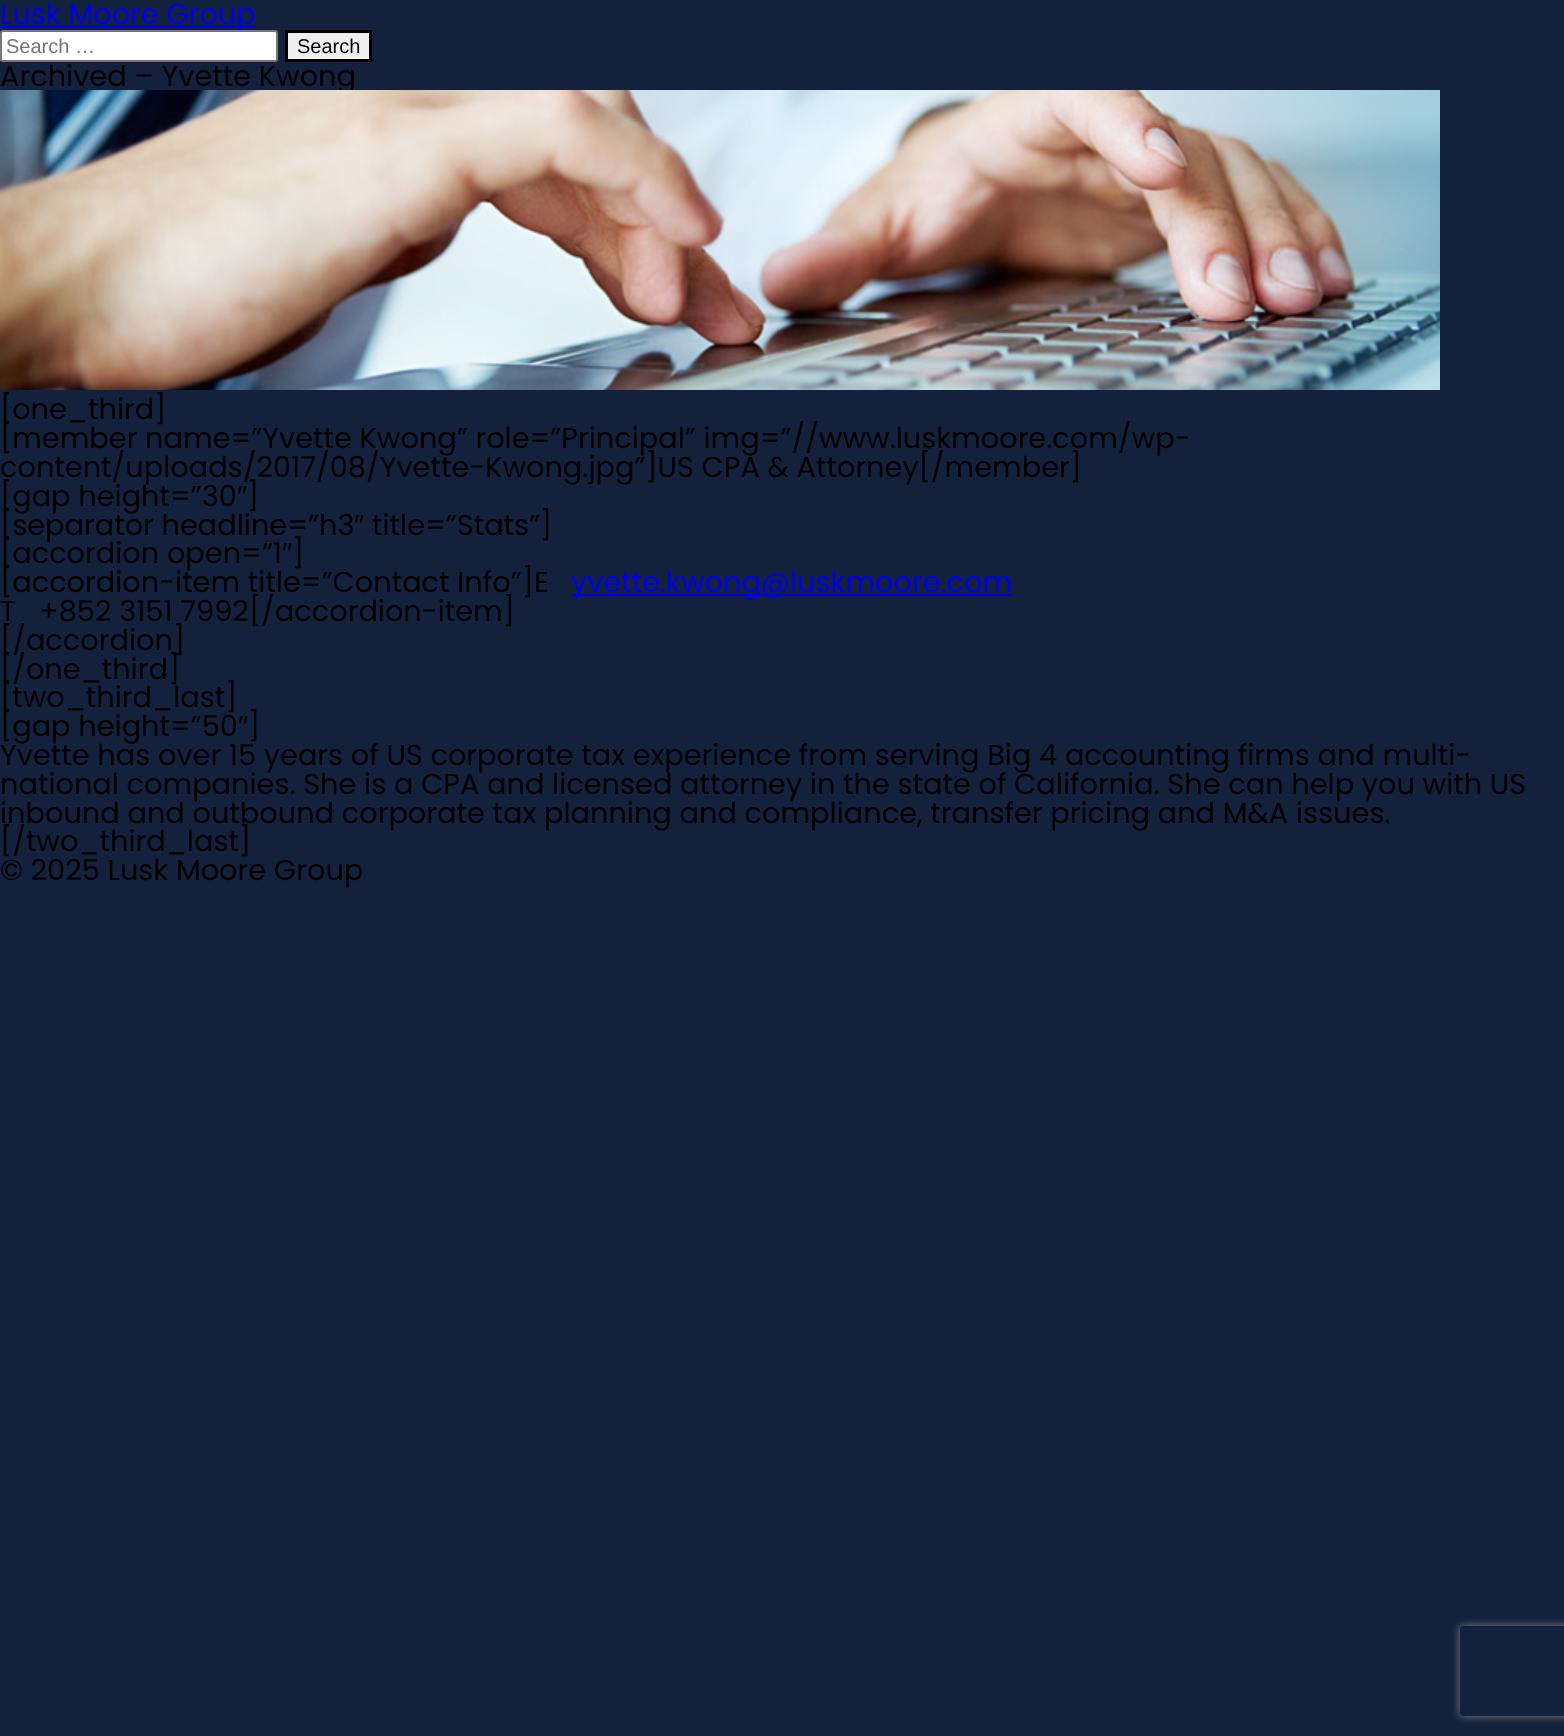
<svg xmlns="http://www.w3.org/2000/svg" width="1564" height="1736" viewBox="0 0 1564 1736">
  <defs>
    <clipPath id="clip1"><path d="M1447 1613H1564V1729H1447ZM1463 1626H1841C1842.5 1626 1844 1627.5 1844 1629V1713C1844 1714.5 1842.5 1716 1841 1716H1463C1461.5 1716 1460 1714.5 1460 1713V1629C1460 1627.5 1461.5 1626 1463 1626Z" clip-rule="evenodd"/></clipPath>
  </defs>
  <rect width="100%" height="100%" fill="#14213d"/>
  <path d="M0 26h255v2H0z" fill="#00e"/>
  <path d="M286.5 31.5h84v29H286.5z" fill="#efefef" stroke="#000" stroke-width="3"/>
  <path d="M572 594h441v2H572z" fill="#00e"/>
  <g clip-path="url(#clip1)">
    <rect x="1460" y="1626" width="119" height="90" rx="3" fill="#808080" filter="blur(4px)"/>
  </g>
  <text x="0" y="24" font-family="Poppins" font-size="28.8" fill="#00e">Lusk Moore Group</text>
  <rect x="1" y="31" width="276" height="30" rx="2" fill="#fff" stroke="#767676" stroke-width="2"/>
  <text x="6" y="53" font-family="Liberation Sans" font-size="20" fill="#757575">Search …</text>
  <text x="297" y="53" font-family="Liberation Sans" font-size="20" fill="#000">Search</text>
  <text x="0" y="86" font-family="Poppins" font-size="28.8" fill="#000">Archived – Yvette Kwong</text>
  <image x="0" y="90" width="1440" height="300" href="img/1.png"/>
  <g font-family="Poppins" font-size="28.8" fill="#000">
    <text x="0" y="419">[one_third]</text>
    <text x="0" y="448">[member name=”Yvette Kwong” role=”Principal” img=”//www.luskmoore.com/wp-</text>
    <text x="0" y="477">content/uploads/2017/08/Yvette-Kwong.jpg”]US CPA &amp; Attorney[/member]</text>
    <text x="0" y="506">[gap height=”30</text>
  </g>
  <text x="237" y="506" font-family="Liberation Sans" font-size="28.8" fill="#000">″</text>
  <g font-family="Poppins" font-size="28.8" fill="#000">
    <text x="247" y="506">]</text>
    <text x="0" y="535">[separator headline=”h3</text>
  </g>
  <text x="354" y="535" font-family="Liberation Sans" font-size="28.8" fill="#000">″</text>
  <g font-family="Poppins" font-size="28.8" fill="#000">
    <text x="372" y="535">title=”Stats”]</text>
    <text x="0" y="563">[accordion open=”1</text>
  </g>
  <text x="282" y="563" font-family="Liberation Sans" font-size="28.8" fill="#000">″</text>
  <g font-family="Poppins" font-size="28.8" fill="#000">
    <text x="292" y="563">]</text>
    <text x="0" y="592">[accordion-item title=”Contact Info”]</text>
    <text x="534" y="592">E</text>
  </g>
  <text x="571" y="592" font-family="Poppins" font-size="28.8" fill="#00e">yvette.kwong@luskmoore.com</text>
  <g font-family="Poppins" font-size="28.8" fill="#000">
    <text x="0" y="621">T</text>
    <text x="39" y="621">+852 3151 7992[/accordion-item]</text>
    <text x="0" y="650">[/accordion]</text>
    <text x="0" y="679">[/one_third]</text>
    <text x="0" y="707">[two_third_last]</text>
    <text x="0" y="736">[gap height=”50</text>
  </g>
  <text x="238" y="736" font-family="Liberation Sans" font-size="28.8" fill="#000">″</text>
  <g font-family="Poppins" font-size="28.8" fill="#000">
    <text x="248" y="736">]</text>
    <text x="0" y="765">Yvette has over 15 years of US corporate tax experience from serving Big 4 accounting firms and multi-</text>
    <text x="0" y="794">national companies. She is a CPA and licensed attorney in the state of California. She can help you with US</text>
    <text x="0" y="823">inbound and outbound corporate tax planning and compliance, transfer pricing and M&amp;A issues.</text>
    <text x="0" y="851">[/two_third_last]</text>
    <text x="0" y="880">© 2025 Lusk Moore Group</text>
  </g>
</svg>
